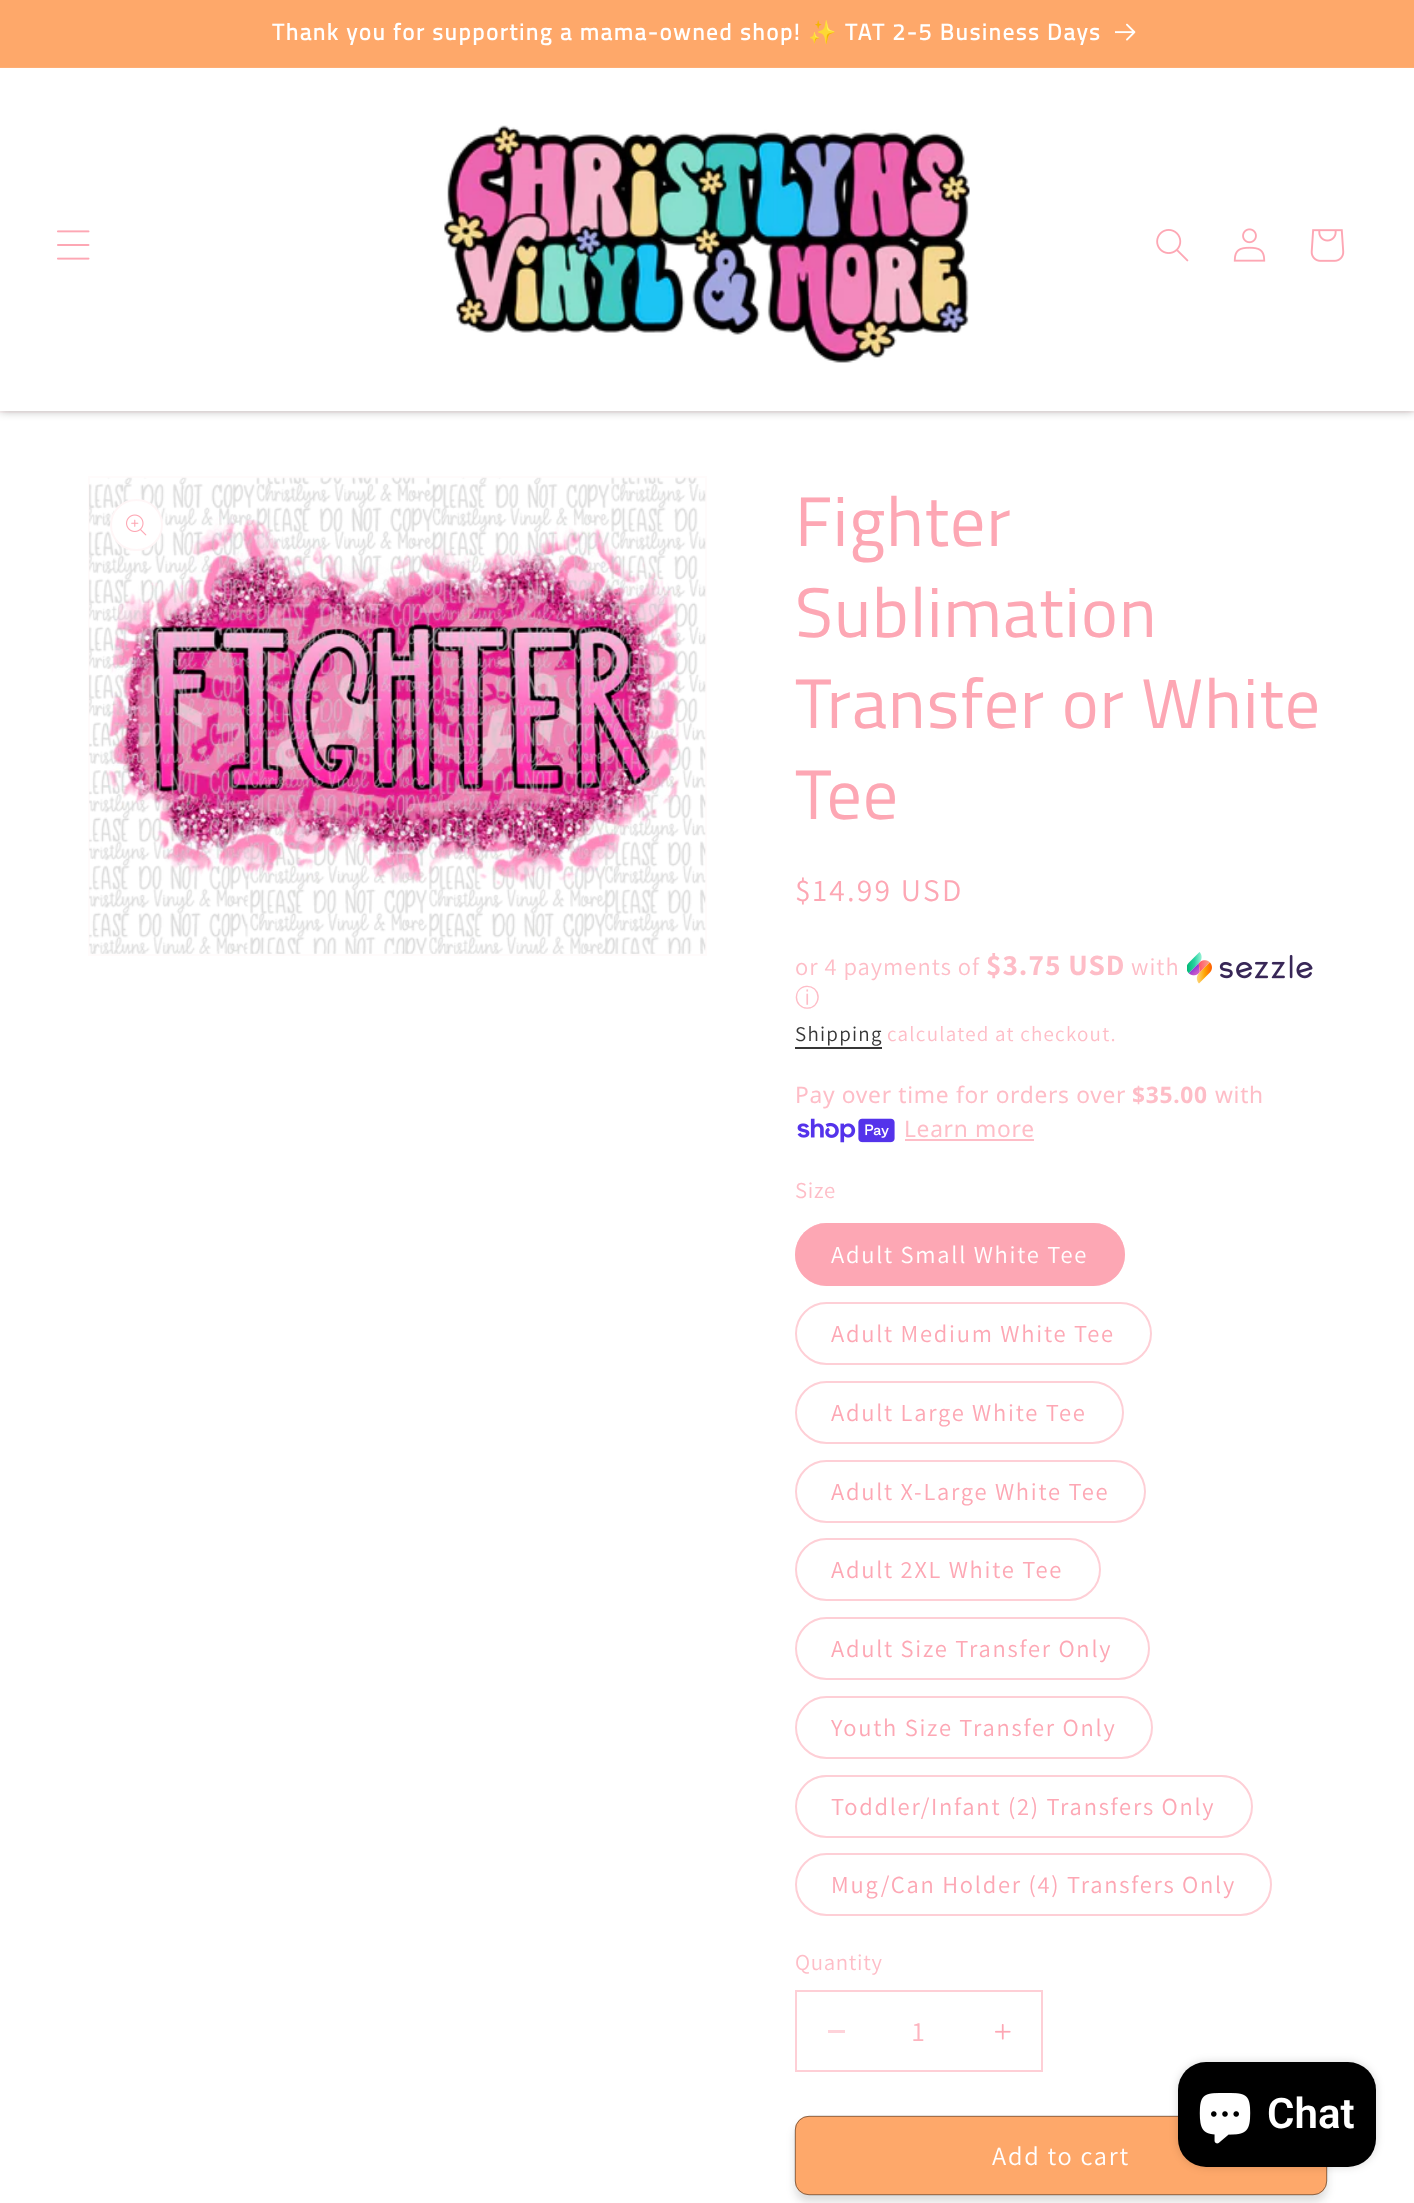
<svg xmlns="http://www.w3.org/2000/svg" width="1414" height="2203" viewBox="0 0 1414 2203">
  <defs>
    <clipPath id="clip1"><path d="M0 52H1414V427H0ZM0 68H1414V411H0Z" clip-rule="evenodd"/></clipPath>
  </defs>
  <rect width="100%" height="100%" fill="#fff"/>
  <path d="M0 411h1414v2H0z" fill="#fff8f9"/>
  <g clip-path="url(#clip1)">
    <path d="M0 68h1414v343H0z" fill="#0000004d" filter="blur(5px)"/>
  </g>
  <path d="M0 0h1414v68H0z" fill="#fea86a"/>
  <path d="M0 67h1414v1H0z" fill="#ffffff14"/>
  <image x="1115" y="23" width="21" height="18" href="img/1.png"/>
  <image x="57" y="230" width="33" height="30" href="img/2.png"/>
  <image x="444" y="125" width="526" height="238" href="img/3.png"/>
  <image x="1156" y="229" width="33" height="33" href="img/4.png"/>
  <image x="1233" y="228" width="33" height="34" href="img/5.png"/>
  <image x="1310" y="229" width="35" height="33" href="img/6.png"/>
  <path d="M89 477h617v478H89z" fill="none" stroke="#fffbfb" stroke-width="2"/>
  <image x="89" y="477" width="617" height="477" href="img/7.png"/>
  <rect x="110" y="499" width="53" height="52" rx="26" fill="#fff"/>
  <rect x="111" y="500" width="51" height="50" rx="25" fill="none" stroke="#fda7b41a" stroke-width="2"/>
  <image x="126" y="514" width="21" height="22" href="img/8.png"/>
  <image x="1187" y="952" width="126" height="32" href="img/9.png"/>
  <path d="M795 1047h87v2H795z" fill="#363636"/>
  <image x="797" y="1118" width="98" height="25" href="img/10.png"/>
  <path d="M905 1139h129v2H905z" fill="#febdc7"/>
  <rect x="795" y="1223" width="330" height="63" rx="31.5" fill="#fda7b4"/>
  <rect x="796" y="1224" width="328" height="61" rx="30.5" fill="none" stroke="#fda7b48c" stroke-width="2"/>
  <rect x="796" y="1303" width="355" height="61" rx="30.5" fill="none" stroke="#fecfd6" stroke-width="2"/>
  <rect x="796" y="1382" width="327" height="61" rx="30.5" fill="none" stroke="#fecfd6" stroke-width="2"/>
  <rect x="796" y="1461" width="349" height="61" rx="30.5" fill="none" stroke="#fecfd6" stroke-width="2"/>
  <rect x="796" y="1539" width="304" height="61" rx="30.5" fill="none" stroke="#fecfd6" stroke-width="2"/>
  <rect x="796" y="1618" width="353" height="61" rx="30.5" fill="none" stroke="#fecfd6" stroke-width="2"/>
  <rect x="796" y="1697" width="356" height="61" rx="30.5" fill="none" stroke="#fecfd6" stroke-width="2"/>
  <rect x="796" y="1776" width="456" height="61" rx="30.5" fill="none" stroke="#fecfd6" stroke-width="2"/>
  <rect x="796" y="1854" width="475" height="61" rx="30.5" fill="none" stroke="#fecfd6" stroke-width="2"/>
  <path d="M828 2030h17v3H828z" fill="#fed3da"/>
  <image x="995" y="2024" width="16" height="16" href="img/11.png"/>
  <path d="M796 1991h246v80H796z" fill="none" stroke="#fecfd6" stroke-width="2"/>
  <rect x="795" y="2123" width="532" height="79" rx="14" fill="#12121226" filter="blur(4.5px)"/>
  <rect x="795" y="2116" width="532" height="79" rx="14" fill="#fea86a"/>
  <rect x="795.25" y="2116.25" width="531.5" height="78.5" rx="13.75" fill="none" stroke="#121212" stroke-width="0.5"/>
  <rect x="1178" y="2062" width="198" height="105" rx="28" fill="#00000026" filter="blur(4.5px)"/>
  <rect x="1178" y="2062" width="198" height="105" rx="28" fill="#000"/>
  <image x="1199" y="2093" width="52" height="51" href="img/12.png"/>
  <text x="272" y="40" font-family="Titillium Web" font-size="22.75" font-weight="bold" letter-spacing="1.75" fill="#fff">Thank you for supporting a mama-owned shop!</text>
  <text x="808" y="40" font-family="Noto Color Emoji" font-size="22.75" font-weight="bold" letter-spacing="1.75" fill="#fff">✨</text>
  <text x="845" y="40" font-family="Titillium Web" font-size="22.75" font-weight="bold" letter-spacing="1.75" fill="#fff">TAT 2-5 Business Days</text>
  <g font-family="Titillium Web" font-size="70" letter-spacing="1" fill="#fda7b4">
    <text x="795" y="546">Fighter</text>
    <text x="795" y="637">Sublimation</text>
    <text x="795" y="728">Transfer or White</text>
    <text x="795" y="819">Tee</text>
  </g>
  <text x="795" y="901" font-family="Assistant" font-size="31.5" letter-spacing="2.25" fill="#fda7b4">$14.99 USD</text>
  <text x="795" y="975" font-family="Assistant" font-size="24.5" letter-spacing="1" fill="#febdc7">or 4 payments of</text>
  <text x="986" y="975" font-family="Assistant" font-size="29.5" font-weight="bold" letter-spacing="1" fill="#febdc7">$3.75 USD</text>
  <text x="1131" y="975" font-family="Assistant" font-size="24.5" letter-spacing="1" fill="#febdc7">with</text>
  <text x="795" y="1006" font-family="WenQuanYi Zen Hei" font-size="24.5" font-weight="500" letter-spacing="1" fill="#febdc7">ⓘ</text>
  <text x="795" y="1041" font-family="Assistant" font-size="21" letter-spacing="1.25" fill="#363636">Shipping</text>
  <text x="887" y="1041" font-family="Assistant" font-size="21" letter-spacing="1.25" fill="#febdc7">calculated at checkout.</text>
  <text x="795" y="1103" font-family="Noto Sans" font-size="22.75" letter-spacing="0.7" fill="#febdc7">Pay over time for orders over</text>
  <text x="1132" y="1103" font-family="Noto Sans" font-size="22.75" font-weight="bold" letter-spacing="0.7" fill="#febdc7">$35.00</text>
  <g font-family="Noto Sans" font-size="22.75" letter-spacing="0.7" fill="#febdc7">
    <text x="1215" y="1103">with</text>
    <text x="904" y="1137">Learn more</text>
  </g>
  <text x="795" y="1198" font-family="Assistant" font-size="22.75" letter-spacing="0.7" fill="#febdc7">Size</text>
  <text x="831" y="1263" font-family="Assistant" font-size="24.5" letter-spacing="1.75" fill="#fff">Adult Small White Tee</text>
  <g font-family="Assistant" font-size="24.5" letter-spacing="1.75" fill="#fda7b4">
    <text x="831" y="1342">Adult Medium White Tee</text>
    <text x="831" y="1421">Adult Large White Tee</text>
    <text x="831" y="1500">Adult X-Large White Tee</text>
    <text x="831" y="1578">Adult 2XL White Tee</text>
    <text x="831" y="1657">Adult Size Transfer Only</text>
    <text x="831" y="1736">Youth Size Transfer Only</text>
    <text x="831" y="1815">Toddler/Infant (2) Transfers Only</text>
    <text x="831" y="1893">Mug/Can Holder (4) Transfers Only</text>
  </g>
  <text x="795" y="1970" font-family="Assistant" font-size="22.75" letter-spacing="0.7" fill="#febdc7">Quantity</text>
  <text x="912" y="2041" font-family="Assistant" font-size="28" fill="#fdb4bf">1</text>
  <text x="992" y="2165" font-family="Assistant" font-size="26.25" letter-spacing="1.75" fill="#fff">Add to cart</text>
  <text x="1267" y="2128" font-family="Roboto" font-size="42" font-weight="600" fill="#fff">Chat</text>
</svg>
